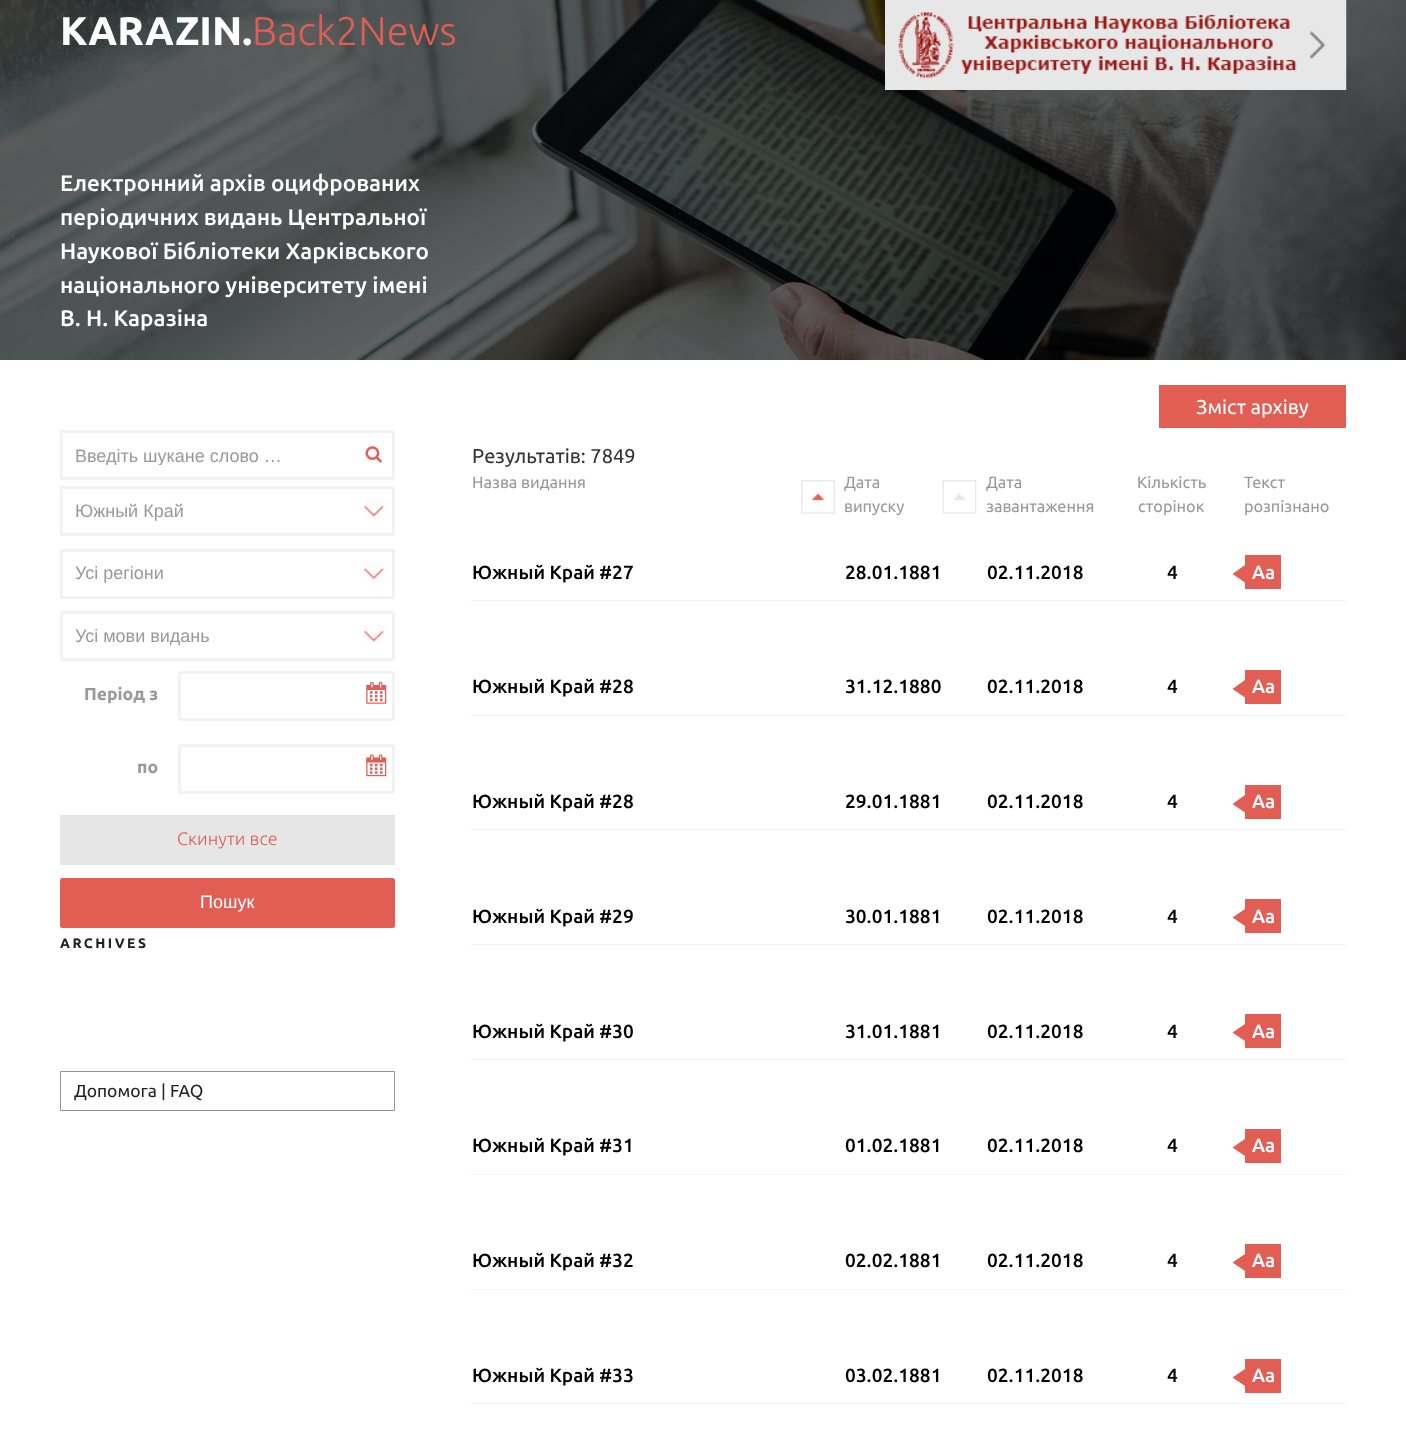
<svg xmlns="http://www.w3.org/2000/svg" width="1406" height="1448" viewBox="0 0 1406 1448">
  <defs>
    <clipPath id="clip1"><path d="M75 445h299v20H75z"/></clipPath>
  </defs>
  <rect width="100%" height="100%" fill="#fff"/>
  <image x="0" y="0" width="1406" height="360" href="img/1.png"/>
  <image x="885" y="0" width="462" height="90" href="img/2.png"/>
  <path d="M1159 385h187v43H1159z" fill="#e25e55"/>
  <rect x="61.5" y="431.5" width="332" height="47" rx="1" fill="none" stroke="#f2f2f2" stroke-width="3"/>
  <image x="365" y="446" width="17" height="17" href="img/3.png"/>
  <image x="363" y="499" width="26" height="20" href="img/4.png"/>
  <rect x="61.5" y="487.5" width="332" height="47" rx="1" fill="none" stroke="#f2f2f2" stroke-width="3"/>
  <image x="363" y="562" width="26" height="19" href="img/5.png"/>
  <rect x="61.5" y="550.5" width="332" height="47" rx="1" fill="none" stroke="#f2f2f2" stroke-width="3"/>
  <image x="363" y="624" width="26" height="20" href="img/4.png"/>
  <rect x="61.5" y="612.5" width="332" height="47" rx="1" fill="none" stroke="#f2f2f2" stroke-width="3"/>
  <rect x="179.5" y="672.5" width="214" height="47" rx="1" fill="none" stroke="#f2f2f2" stroke-width="3"/>
  <image x="366" y="681" width="21" height="23" href="img/6.png"/>
  <rect x="179.5" y="745.5" width="214" height="47" rx="1" fill="none" stroke="#f2f2f2" stroke-width="3"/>
  <image x="366" y="754" width="21" height="23" href="img/7.png"/>
  <path d="M60 815h335v50H60z" fill="#e6e6e6"/>
  <rect x="60" y="878" width="335" height="50" rx="2.5" fill="#e25e55"/>
  <path d="M60.5 1071.5h334v39H60.5z" fill="none" stroke="#949494"/>
  <image x="801" y="480" width="34" height="34" href="img/8.png"/>
  <image x="942" y="480" width="35" height="34" href="img/9.png"/>
  <path d="M471 600h875v1H471z" fill="#f2f2f2"/>
  <path d="M1245 565V582.5L1232.5 574Z" fill="#e25e55"/>
  <path d="M1245 555h36v34H1245z" fill="#e25e55"/>
  <path d="M471 715h875v1H471z" fill="#f2f2f2"/>
  <path d="M1245 680V697.5L1232.5 689Z" fill="#e25e55"/>
  <path d="M1245 670h36v34H1245z" fill="#e25e55"/>
  <path d="M471 829h875v1H471z" fill="#f2f2f2"/>
  <path d="M1245 795V812.5L1232.5 804Z" fill="#e25e55"/>
  <path d="M1245 785h36v34H1245z" fill="#e25e55"/>
  <path d="M471 944h875v1H471z" fill="#f2f2f2"/>
  <path d="M1245 909V926L1232.5 917.5Z" fill="#e25e55"/>
  <path d="M1245 899h36v34H1245z" fill="#e25e55"/>
  <path d="M471 1059h875v1H471z" fill="#f2f2f2"/>
  <path d="M1245 1024V1041L1232.5 1032.5Z" fill="#e25e55"/>
  <path d="M1245 1014h36v34H1245z" fill="#e25e55"/>
  <path d="M471 1174h875v1H471z" fill="#f2f2f2"/>
  <path d="M1245 1139V1156L1232.5 1147.5Z" fill="#e25e55"/>
  <path d="M1245 1129h36v34H1245z" fill="#e25e55"/>
  <path d="M471 1289h875v1H471z" fill="#f2f2f2"/>
  <path d="M1245 1254V1271L1232.5 1262.5Z" fill="#e25e55"/>
  <path d="M1245 1244h36v34H1245z" fill="#e25e55"/>
  <path d="M471 1403h875v1H471z" fill="#f2f2f2"/>
  <path d="M1245 1369V1386L1232.5 1377.5Z" fill="#e25e55"/>
  <path d="M1245 1359h36v34H1245z" fill="#e25e55"/>
  <text x="60" y="45" font-family="Ubuntu" font-size="40" font-weight="bold" fill="#fff">KARAZIN.</text>
  <text x="252" y="45" font-family="Ubuntu" font-size="40" font-weight="300" fill="#e25e55">Back2News</text>
  <g font-family="Ubuntu" font-size="22.5" font-weight="500" fill="#fff">
    <text x="60" y="191">Електронний архів оцифрованих</text>
    <text x="60" y="225">періодичних видань Центральної</text>
    <text x="60" y="259">Наукової Бібліотеки Харківського</text>
    <text x="60" y="293">національного університету імені</text>
    <text x="60" y="326">В. Н. Каразіна</text>
  </g>
  <text x="1196" y="414" font-family="Ubuntu" font-size="20" fill="#fff">Зміст архіву</text>
  <g clip-path="url(#clip1)">
    <text x="75" y="462" font-family="Liberation Sans" font-size="18" fill="#999">Введіть шукане слово …</text>
  </g>
  <g font-family="Liberation Sans" font-size="18" fill="#999">
    <text x="75" y="517">Южный Край</text>
    <text x="75" y="579">Усі регіони</text>
    <text x="75" y="642">Усі мови видань</text>
  </g>
  <g font-family="Ubuntu" font-size="17.5" font-weight="bold" fill="#999">
    <text x="84" y="700">Період з</text>
    <text x="137" y="773">по</text>
  </g>
  <text x="177" y="845" font-family="Ubuntu" font-size="18" font-weight="300" fill="#e25e55">Скинути все</text>
  <text x="200" y="908" font-family="Liberation Sans" font-size="18" fill="#fff">Пошук</text>
  <text x="60" y="948" font-family="Ubuntu" font-size="13.75" font-weight="bold" letter-spacing="2.5" fill="#222">ARCHIVES</text>
  <text x="74" y="1097" font-family="Ubuntu" font-size="17.5" fill="#222">Допомога | FAQ</text>
  <text x="472" y="463" font-family="Ubuntu" font-size="20" fill="#333">Результатів: 7849</text>
  <g font-family="Ubuntu" font-size="16.25" fill="#999">
    <text x="472" y="488">Назва видання</text>
    <text x="844" y="488">Дата</text>
    <text x="844" y="512">випуску</text>
    <text x="986" y="488">Дата</text>
    <text x="986" y="512">завантаження</text>
    <text x="1137" y="488">Кількість</text>
    <text x="1138" y="512">сторінок</text>
    <text x="1244" y="488">Текст</text>
    <text x="1244" y="512">розпізнано</text>
  </g>
  <g font-family="Ubuntu" font-size="19" font-weight="500" fill="#000">
    <text x="472" y="579">Южный Край #27</text>
    <text x="845" y="579">28.01.1881</text>
    <text x="987" y="579">02.11.2018</text>
    <text x="1167" y="579">4</text>
  </g>
  <text x="1252" y="579" font-family="Ubuntu" font-size="19" font-weight="500" fill="#fff">Aa</text>
  <g font-family="Ubuntu" font-size="19" font-weight="500" fill="#000">
    <text x="472" y="693">Южный Край #28</text>
    <text x="845" y="693">31.12.1880</text>
    <text x="987" y="693">02.11.2018</text>
    <text x="1167" y="693">4</text>
  </g>
  <text x="1252" y="693" font-family="Ubuntu" font-size="19" font-weight="500" fill="#fff">Aa</text>
  <g font-family="Ubuntu" font-size="19" font-weight="500" fill="#000">
    <text x="472" y="808">Южный Край #28</text>
    <text x="845" y="808">29.01.1881</text>
    <text x="987" y="808">02.11.2018</text>
    <text x="1167" y="808">4</text>
  </g>
  <text x="1252" y="808" font-family="Ubuntu" font-size="19" font-weight="500" fill="#fff">Aa</text>
  <g font-family="Ubuntu" font-size="19" font-weight="500" fill="#000">
    <text x="472" y="923">Южный Край #29</text>
    <text x="845" y="923">30.01.1881</text>
    <text x="987" y="923">02.11.2018</text>
    <text x="1167" y="923">4</text>
  </g>
  <text x="1252" y="923" font-family="Ubuntu" font-size="19" font-weight="500" fill="#fff">Aa</text>
  <g font-family="Ubuntu" font-size="19" font-weight="500" fill="#000">
    <text x="472" y="1038">Южный Край #30</text>
    <text x="845" y="1038">31.01.1881</text>
    <text x="987" y="1038">02.11.2018</text>
    <text x="1167" y="1038">4</text>
  </g>
  <text x="1252" y="1038" font-family="Ubuntu" font-size="19" font-weight="500" fill="#fff">Aa</text>
  <g font-family="Ubuntu" font-size="19" font-weight="500" fill="#000">
    <text x="472" y="1152">Южный Край #31</text>
    <text x="845" y="1152">01.02.1881</text>
    <text x="987" y="1152">02.11.2018</text>
    <text x="1167" y="1152">4</text>
  </g>
  <text x="1252" y="1152" font-family="Ubuntu" font-size="19" font-weight="500" fill="#fff">Aa</text>
  <g font-family="Ubuntu" font-size="19" font-weight="500" fill="#000">
    <text x="472" y="1267">Южный Край #32</text>
    <text x="845" y="1267">02.02.1881</text>
    <text x="987" y="1267">02.11.2018</text>
    <text x="1167" y="1267">4</text>
  </g>
  <text x="1252" y="1267" font-family="Ubuntu" font-size="19" font-weight="500" fill="#fff">Aa</text>
  <g font-family="Ubuntu" font-size="19" font-weight="500" fill="#000">
    <text x="472" y="1382">Южный Край #33</text>
    <text x="845" y="1382">03.02.1881</text>
    <text x="987" y="1382">02.11.2018</text>
    <text x="1167" y="1382">4</text>
  </g>
  <text x="1252" y="1382" font-family="Ubuntu" font-size="19" font-weight="500" fill="#fff">Aa</text>
</svg>
